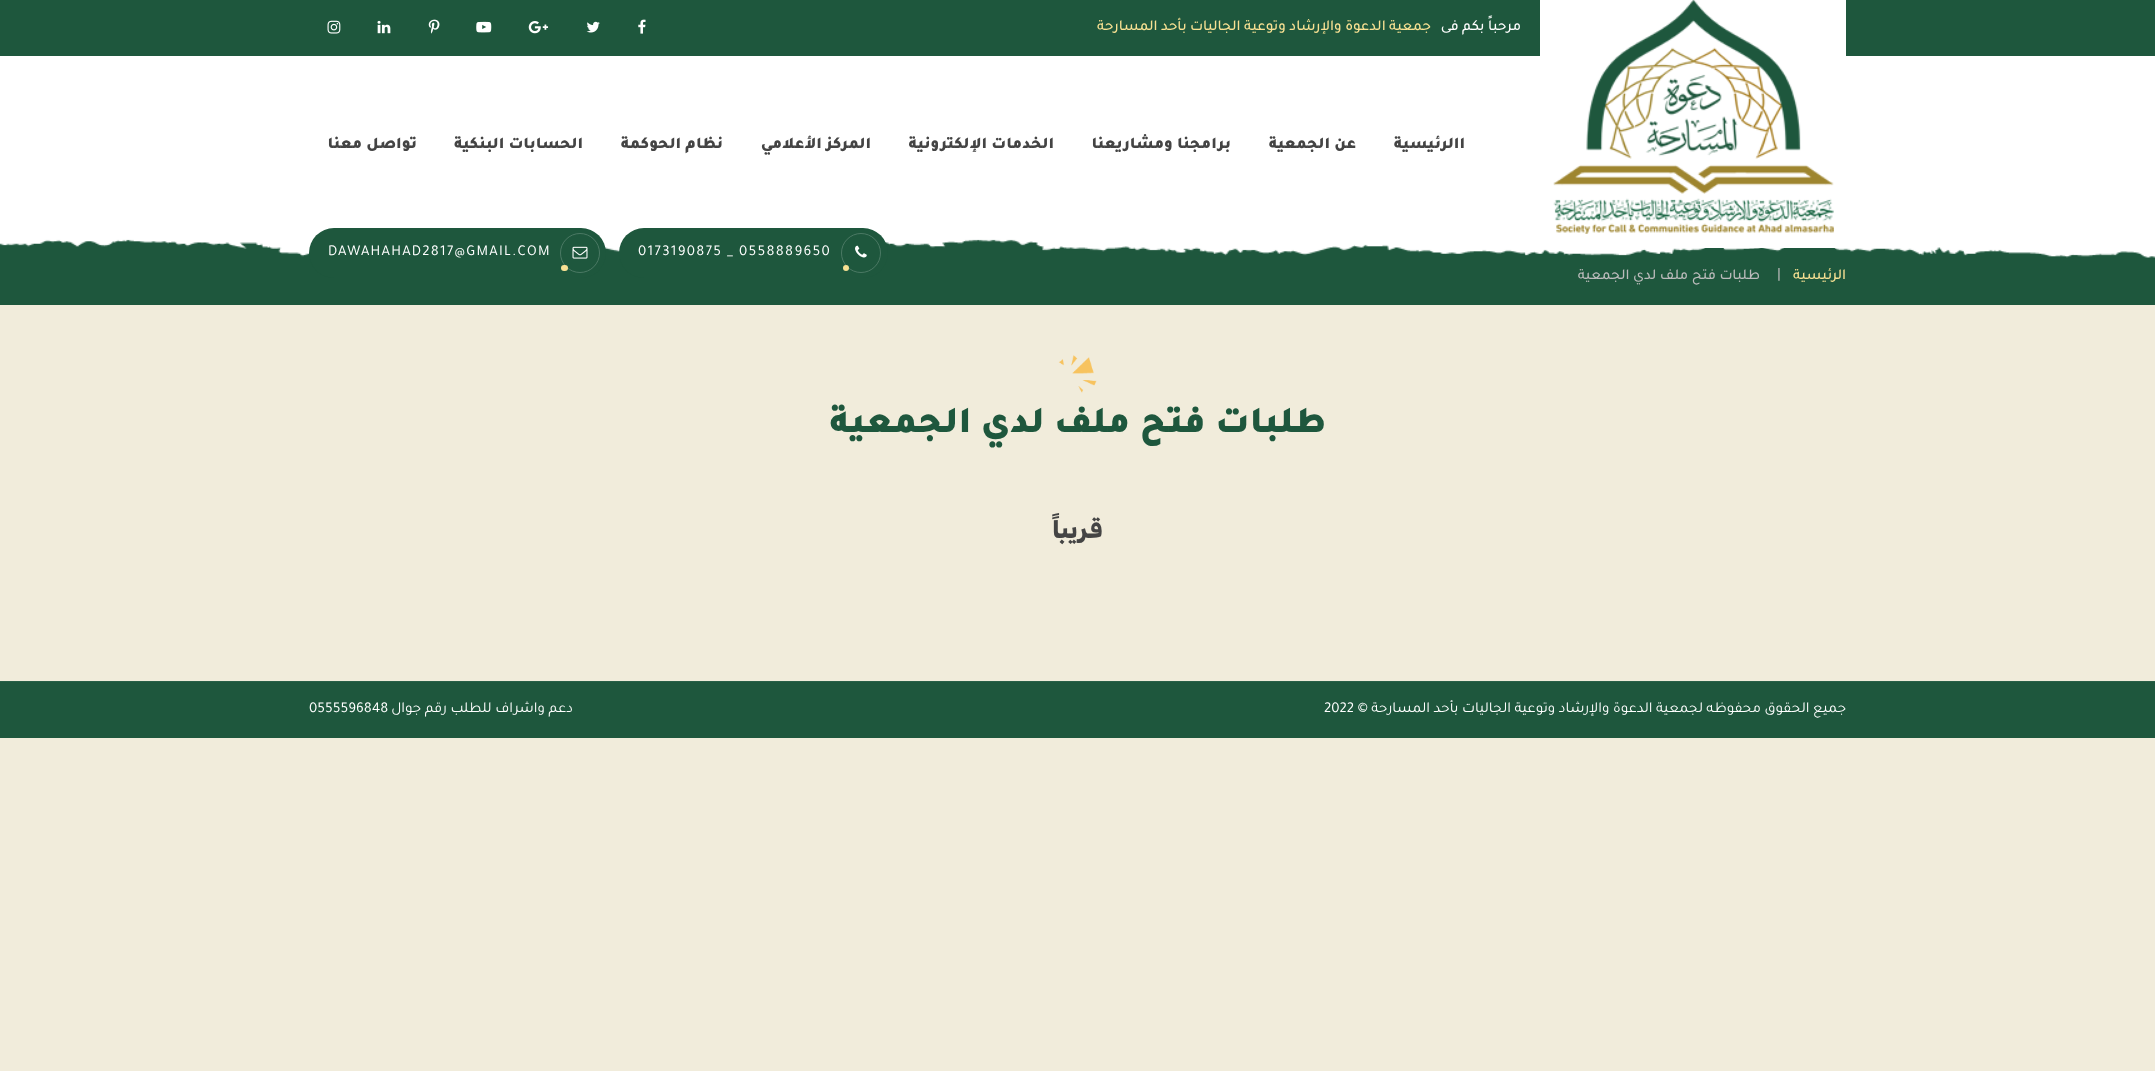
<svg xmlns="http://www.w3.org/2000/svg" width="2155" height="1071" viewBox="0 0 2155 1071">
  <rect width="100%" height="100%" fill="#f1ecdb"/>
  <path d="M0 0h2155v56H0z" fill="#1e573d"/>
  <image x="638" y="19" width="8" height="15" href="img/1.png"/>
  <image x="586" y="21" width="14" height="12" href="img/2.png"/>
  <image x="528" y="21" width="21" height="13" href="img/3.png"/>
  <image x="476" y="21" width="16" height="12" href="img/4.png"/>
  <image x="428" y="19" width="12" height="15" href="img/5.png"/>
  <image x="377" y="20" width="14" height="14" href="img/6.png"/>
  <image x="327" y="20" width="14" height="14" href="img/7.png"/>
  <path d="M0 56h2155v182H0z" fill="#fff"/>
  <path d="M0 239h2155v66H0z" fill="#1e573d"/>
  <image x="0" y="238" width="2155" height="20" href="img/11.png"/>
  <path d="M1540 0h306v248H1540z" fill="#fff"/>
  <image x="1553" y="0" width="281" height="234" href="img/8.png"/>
  <rect x="619" y="228" width="269" height="50" rx="25" fill="#1e573d"/>
  <circle cx="861" cy="253" r="19.5" fill="none" stroke="#4b7964"/>
  <image x="855" y="245" width="12" height="13" href="img/9.png"/>
  <circle cx="846" cy="268" r="3" fill="#f8e193"/>
  <rect x="309" y="228" width="297" height="50" rx="25" fill="#1e573d"/>
  <circle cx="580" cy="253" r="19.5" fill="none" stroke="#4b7964"/>
  <image x="572" y="246" width="16" height="13" href="img/10.png"/>
  <rect x="561" y="265" width="7" height="6" rx="3" fill="#f8e193"/>
  <image x="1058" y="355" width="39" height="38" href="img/12.png"/>
  <path d="M0 682h2155v56H0z" fill="#1e573d"/>
  <path d="M0 681h2155v1H0z" fill="#295f47"/>
  <text x="1521" y="30" font-family="Tajawal" font-size="15" font-weight="500" direction="rtl" fill="#fff">مرحباً بكم فى</text>
  <text x="1431" y="30" font-family="Tajawal" font-size="15" font-weight="500" direction="rtl" fill="#f8e193">جمعية الدعوة والإرشاد وتوعية الجاليات بأحد المسارحة</text>
  <g font-family="Tajawal" font-size="16.25" font-weight="900" direction="rtl" fill="#444">
    <text x="1465" y="148">االرئيسية</text>
    <text x="1356" y="148">عن الجمعية</text>
    <text x="1231" y="148">برامجنا ومشاريعنا</text>
    <text x="1054" y="148">الخدمات الإلكترونية</text>
    <text x="871" y="148">المركز الأعلامي</text>
    <text x="723" y="148">نظام الحوكمة</text>
    <text x="583" y="148">الحسابات البنكية</text>
    <text x="417" y="148">تواصل معنا</text>
  </g>
  <g font-family="Tajawal" font-size="15" letter-spacing="1.25" fill="#fff">
    <text x="638" y="255">0173190875 _ 0558889650</text>
    <text x="328" y="255">DAWAHAHAD2817@GMAIL.COM</text>
  </g>
  <text x="1846" y="279" font-family="Tajawal" font-size="15" font-weight="500" direction="rtl" fill="#f8e193">الرئيسية</text>
  <text x="1777" y="278" font-family="Tajawal" font-size="15" font-weight="500" fill="#bbb">|</text>
  <text x="1760" y="279" font-family="Tajawal" font-size="15" font-weight="500" direction="rtl" fill="#bbb">طلبات فتح ملف لدي الجمعية</text>
  <text x="1326" y="432" font-family="Tajawal" font-size="37.5" font-weight="900" direction="rtl" fill="#1e573d">طلبات فتح ملف لدي الجمعية</text>
  <text x="1103" y="538" font-family="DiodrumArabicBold" font-size="25" font-weight="bold" direction="rtl" fill="#444">قريباً</text>
  <g font-family="Tajawal" font-size="15" direction="rtl" fill="#fff">
    <text x="1846" y="712">جميع الحقوق محفوظه</text>
    <text x="1703" y="712">لجمعية الدعوة والإرشاد وتوعية الجاليات بأحد المسارحة</text>
  </g>
  <text x="1324" y="712" font-family="Tajawal" font-size="15" fill="#fff">2022 ©</text>
  <text x="573" y="712" font-family="Tajawal" font-size="15" direction="rtl" fill="#fff">دعم واشراف للطلب رقم جوال</text>
  <text x="309" y="712" font-family="Tajawal" font-size="15" fill="#fff">0555596848</text>
</svg>
